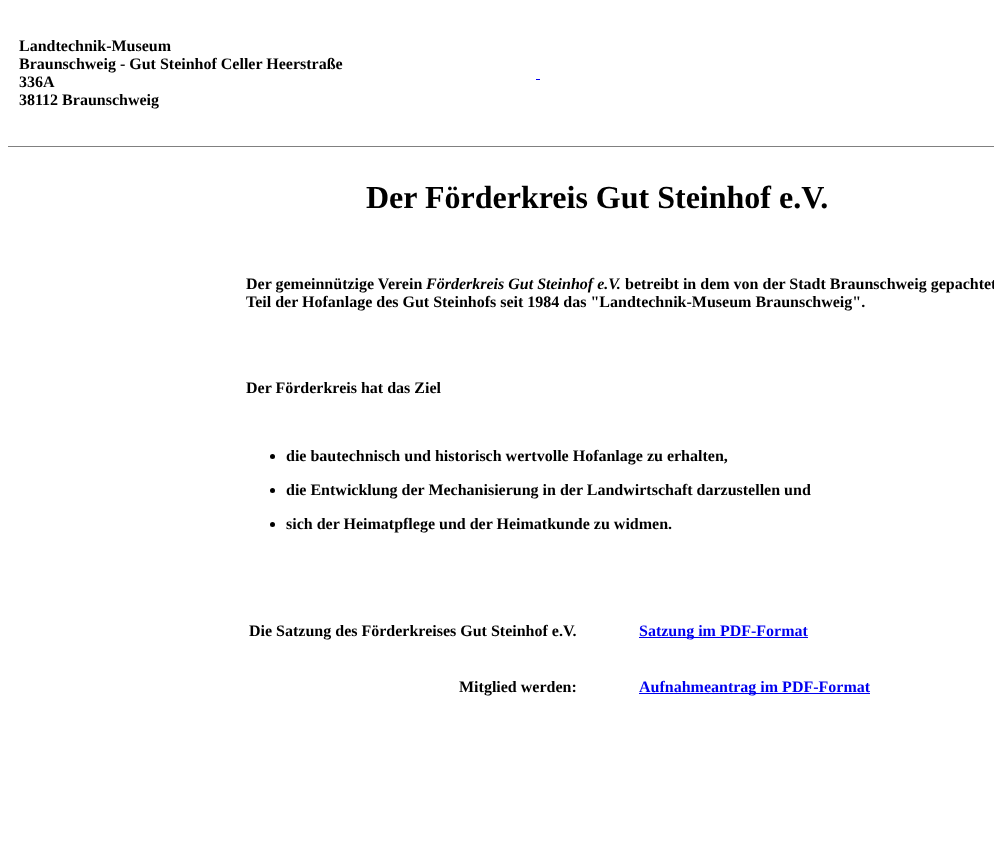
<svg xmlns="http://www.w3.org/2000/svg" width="994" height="866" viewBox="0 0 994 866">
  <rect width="100%" height="100%" fill="#fff"/>
  <path d="M536 79h4v1H536z" fill="#00e"/>
  <path d="M8 146h986v1H8z" fill="#808080"/>
  <circle cx="272.5" cy="456.5" r="2.5" fill="#000"/>
  <circle cx="272.5" cy="490.5" r="2.5" fill="#000"/>
  <circle cx="272.5" cy="524.5" r="2.5" fill="#000"/>
  <path d="M639 637h169v1H639z" fill="#00e"/>
  <path d="M639 693h231v1H639z" fill="#00e"/>
  <g font-family="Liberation Serif" font-size="16" font-weight="bold" fill="#000">
    <text x="19" y="51">Landtechnik-Museum</text>
    <text x="19" y="69">Braunschweig - Gut Steinhof Celler Heerstraße</text>
    <text x="19" y="87">336A</text>
    <text x="19" y="105">38112 Braunschweig</text>
  </g>
  <text x="366" y="208" font-family="Liberation Serif" font-size="32" font-weight="bold" fill="#000">Der Förderkreis Gut Steinhof e.V.</text>
  <text x="246" y="289" font-family="Liberation Serif" font-size="16" font-weight="bold" fill="#000">Der gemeinnützige Verein</text>
  <text x="426" y="289" font-family="Liberation Serif" font-size="16" font-weight="bold" font-style="italic" fill="#000">Förderkreis Gut Steinhof e.V.</text>
  <g font-family="Liberation Serif" font-size="16" font-weight="bold" fill="#000">
    <text x="625" y="289">betreibt in dem von der Stadt Braunschweig gepachtet</text>
    <text x="246" y="307">Teil der Hofanlage des Gut Steinhofs seit 1984 das "Landtechnik-Museum Braunschweig".</text>
    <text x="246" y="393">Der Förderkreis hat das Ziel</text>
    <text x="286" y="461">die bautechnisch und historisch wertvolle Hofanlage zu erhalten,</text>
    <text x="286" y="495">die Entwicklung der Mechanisierung in der Landwirtschaft darzustellen und</text>
    <text x="286" y="529">sich der Heimatpflege und der Heimatkunde zu widmen.</text>
    <text x="249" y="636">Die Satzung des Förderkreises Gut Steinhof e.V.</text>
  </g>
  <text x="639" y="636" font-family="Liberation Serif" font-size="16" font-weight="bold" fill="#00e">Satzung im PDF-Format</text>
  <text x="459" y="692" font-family="Liberation Serif" font-size="16" font-weight="bold" fill="#000">Mitglied werden:</text>
  <text x="639" y="692" font-family="Liberation Serif" font-size="16" font-weight="bold" fill="#00e">Aufnahmeantrag im PDF-Format</text>
</svg>
